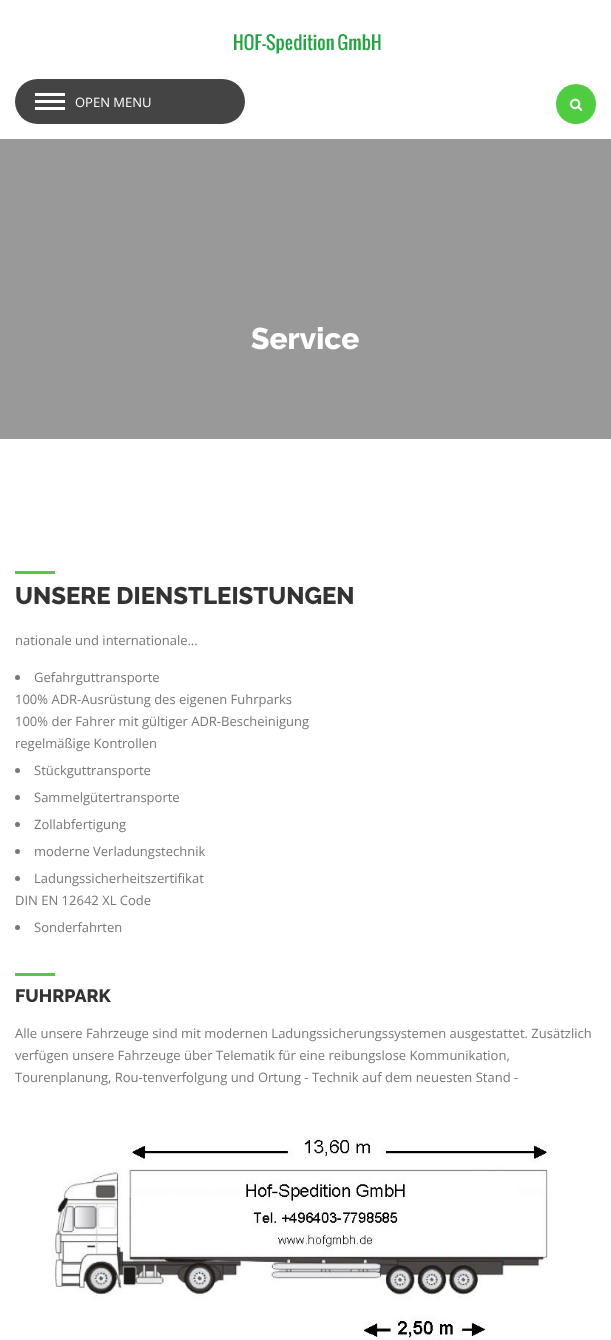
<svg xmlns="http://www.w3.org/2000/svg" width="611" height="1340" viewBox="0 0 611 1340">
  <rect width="100%" height="100%" fill="#fff"/>
  <image x="234" y="34" width="147" height="20" href="img/1.png"/>
  <rect x="15" y="79" width="230" height="45" rx="22.5" fill="#444"/>
  <path d="M35 107h30v3H35z" fill="#fff"/>
  <path d="M35 100h30v3H35z" fill="#fff"/>
  <path d="M35 93h30v3H35z" fill="#fff"/>
  <circle cx="576" cy="104" r="20" fill="#4fcc3f"/>
  <image x="569" y="98" width="14" height="13" href="img/2.png"/>
  <path d="M0 139h611v300H0z" fill="#999"/>
  <path d="M15 571h40v3H15z" fill="#4fcc3f"/>
  <circle cx="17.5" cy="677.5" r="2.5" fill="#777"/>
  <circle cx="17.5" cy="770.5" r="2.5" fill="#777"/>
  <circle cx="17.5" cy="797.5" r="2.5" fill="#777"/>
  <circle cx="17.5" cy="824.5" r="2.5" fill="#777"/>
  <circle cx="17.5" cy="851.5" r="2.5" fill="#777"/>
  <circle cx="17.5" cy="878.5" r="2.5" fill="#777"/>
  <circle cx="17.5" cy="927.5" r="2.5" fill="#777"/>
  <path d="M15 973h40v3H15z" fill="#4fcc3f"/>
  <image x="51" y="1136" width="497" height="204" href="img/3.png"/>
  <text x="75" y="107" font-family="Open Sans" font-size="13" fill="#fff">OPEN MENU</text>
  <text x="251" y="349" font-family="Raleway" font-size="30" font-weight="100" fill="#fff">Service</text>
  <text x="15" y="604" font-family="Raleway" font-size="24" font-weight="100" fill="#333">UNSERE DIENSTLEISTUNGEN</text>
  <g font-family="Open Sans" font-size="13" fill="#777">
    <text x="15" y="645">nationale und internationale…</text>
    <text x="34" y="682">Gefahrguttransporte</text>
    <text x="15" y="704">100% ADR-Ausrüstung des eigenen Fuhrparks</text>
    <text x="15" y="726">100% der Fahrer mit gültiger ADR-Bescheinigung</text>
    <text x="15" y="748">regelmäßige Kontrollen</text>
    <text x="34" y="775">Stückguttransporte</text>
    <text x="34" y="802">Sammelgütertransporte</text>
    <text x="34" y="829">Zollabfertigung</text>
    <text x="34" y="856">moderne Verladungstechnik</text>
    <text x="34" y="883">Ladungssicherheitszertifikat</text>
    <text x="15" y="905">DIN EN 12642 XL Code</text>
    <text x="34" y="932">Sonderfahrten</text>
  </g>
  <text x="15" y="1002" font-family="Raleway" font-size="18" font-weight="100" fill="#333">FUHRPARK</text>
  <g font-family="Open Sans" font-size="13" fill="#777">
    <text x="15" y="1038">Alle unsere Fahrzeuge sind mit modernen Ladungssicherungssystemen ausgestattet. Zusätzlich</text>
    <text x="15" y="1060">verfügen unsere Fahrzeuge über Telematik für eine reibungslose Kommunikation,</text>
    <text x="15" y="1082">Tourenplanung, Rou-tenverfolgung und Ortung - Technik auf dem neuesten Stand -</text>
  </g>
</svg>
